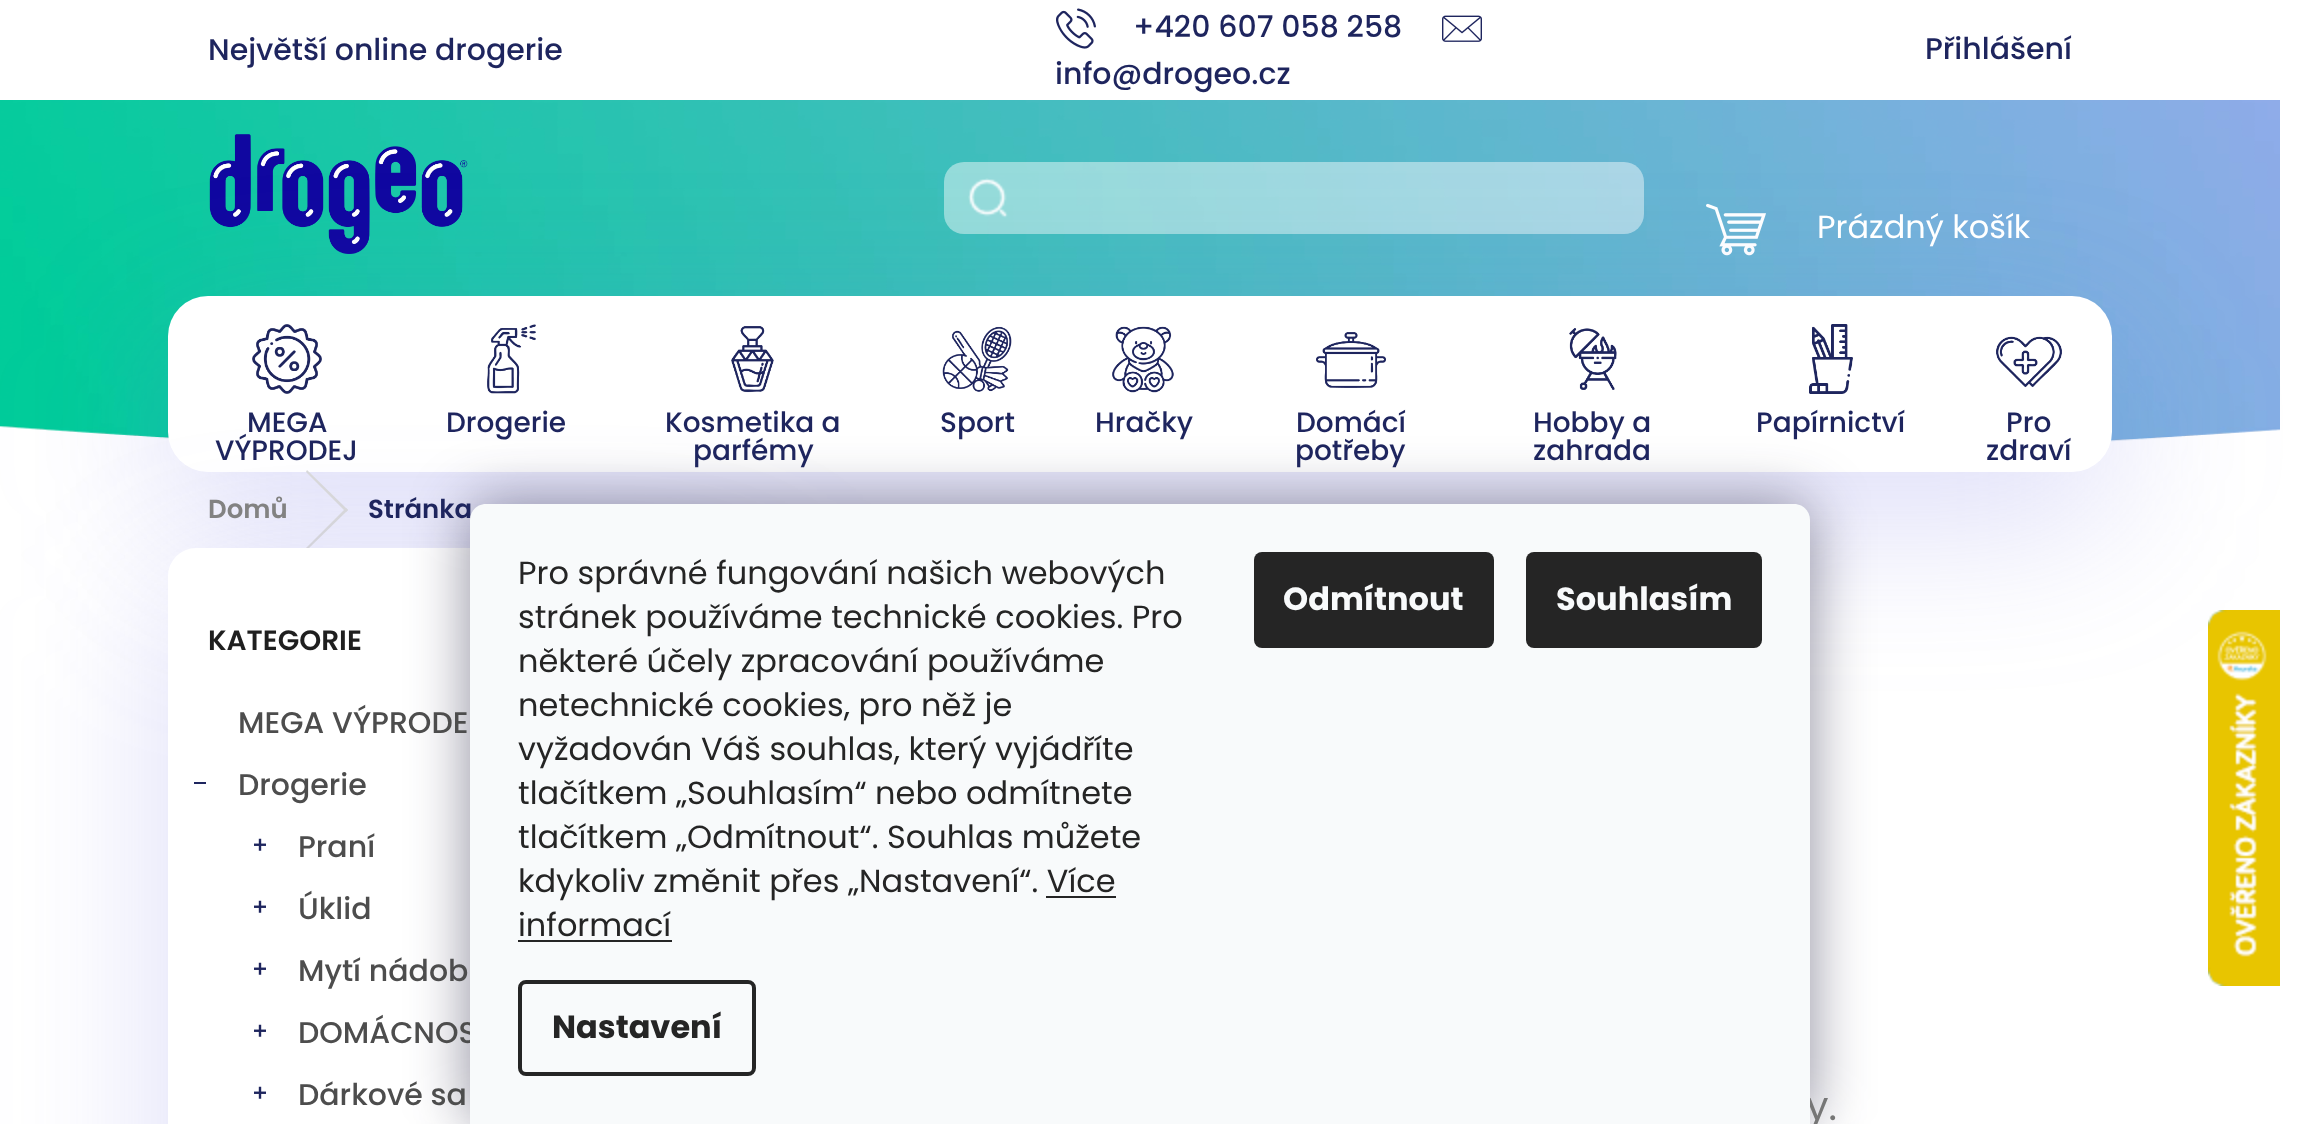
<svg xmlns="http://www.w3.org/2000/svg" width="2310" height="1124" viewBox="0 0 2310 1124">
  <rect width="100%" height="100%" fill="#fff"/>
  <image x="1056" y="8" width="40" height="41" href="img/1.png"/>
  <image x="1442" y="15" width="40" height="27" href="img/2.png"/>
  <image x="0" y="100" width="2280" height="342" href="img/3.png"/>
  <image x="209" y="134" width="259" height="120" href="img/4.png"/>
  <image x="968" y="178" width="40" height="40" href="img/5.png"/>
  <rect x="944" y="162" width="700" height="72" rx="20" fill="#ffffff73"/>
  <image x="1706" y="203" width="60" height="53" href="img/6.png"/>
  <rect x="168" y="344" width="1944" height="176" rx="40" fill="#7474e340" filter="blur(80px)"/>
  <rect x="168" y="296" width="1944" height="176" rx="40" fill="#fff"/>
  <image x="252" y="324" width="70" height="70" href="img/7.png"/>
  <image x="487" y="324" width="49" height="70" href="img/8.png"/>
  <image x="731" y="326" width="43" height="67" href="img/9.png"/>
  <image x="942" y="326" width="70" height="66" href="img/10.png"/>
  <image x="1112" y="326" width="62" height="67" href="img/11.png"/>
  <image x="1316" y="332" width="70" height="56" href="img/12.png"/>
  <image x="1569" y="328" width="48" height="62" href="img/13.png"/>
  <image x="1809" y="324" width="44" height="70" href="img/14.png"/>
  <image x="1996" y="336" width="66" height="52" href="img/15.png"/>
  <path d="M306 472L307 470L348 510L346 512Z" fill="#dadada"/>
  <path d="M346 508L348 510L307 550L306 548Z" fill="#dadada"/>
  <rect x="168" y="596" width="590" height="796" rx="28" fill="#7474e340" filter="blur(80px)"/>
  <rect x="168" y="548" width="590" height="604" rx="28" fill="#fff"/>
  <path d="M194 782h12v2H194z" fill="#1e255e"/>
  <image x="254" y="838" width="12" height="13" href="img/16.png"/>
  <image x="254" y="900" width="12" height="13" href="img/16.png"/>
  <image x="254" y="962" width="12" height="13" href="img/16.png"/>
  <image x="254" y="1024" width="12" height="13" href="img/16.png"/>
  <image x="254" y="1086" width="12" height="13" href="img/16.png"/>
  <rect x="470" y="504" width="1340" height="620" rx="16" fill="#1b193980" filter="blur(30px)"/>
  <image x="2208" y="610" width="72" height="376" href="img/17.png"/>
  <g font-family="Poppins" font-size="30" font-weight="500" fill="#1e255e">
    <text x="208" y="60">Největší online drogerie</text>
    <text x="1133" y="37">+420 607 058 258</text>
    <text x="1055" y="84">info@drogeo.cz</text>
    <text x="1925" y="59">Přihlášení</text>
  </g>
  <text x="1817" y="238" font-family="Poppins" font-size="32" fill="#fff">Prázdný košík</text>
  <g font-family="Poppins" font-size="28" font-weight="500" fill="#1e255e">
    <text x="247" y="432">MEGA</text>
    <text x="215" y="460">VÝPRODEJ</text>
    <text x="446" y="432">Drogerie</text>
    <text x="665" y="432">Kosmetika a</text>
    <text x="693" y="460">parfémy</text>
    <text x="940" y="432">Sport</text>
    <text x="1095" y="432">Hračky</text>
    <text x="1296" y="432">Domácí</text>
    <text x="1295" y="460">potřeby</text>
    <text x="1533" y="432">Hobby a</text>
    <text x="1533" y="460">zahrada</text>
    <text x="1756" y="432">Papírnictví</text>
    <text x="2006" y="432">Pro</text>
    <text x="1986" y="460">zdraví</text>
  </g>
  <text x="208" y="518" font-family="Poppins" font-size="26" font-weight="600" fill="#828282">Domů</text>
  <text x="368" y="518" font-family="Poppins" font-size="26" font-weight="600" fill="#1e255e">Stránka</text>
  <text x="208" y="650" font-family="Poppins" font-size="28" font-weight="600" fill="#1f1f1f">KATEGORIE</text>
  <g font-family="Poppins" font-size="30" font-weight="500" fill="#4d4d4d">
    <text x="238" y="733">MEGA VÝPRODE</text>
    <text x="238" y="795">Drogerie</text>
    <text x="298" y="857">Praní</text>
    <text x="298" y="919">Úklid</text>
    <text x="298" y="981">Mytí nádob</text>
    <text x="298" y="1043">DOMÁCNOS</text>
    <text x="298" y="1105">Dárkové sa</text>
  </g>
  <text x="1806" y="1120" font-family="Poppins" font-size="40" fill="#767676">y.</text>
  <path d="M486 504H1794C1803 504 1810 511 1810 520V1124H470V520C470 511 477 504 486 504Z" fill="#f8fafb"/>
  <g font-family="Poppins" font-size="32" fill="#252525">
    <text x="518" y="584">Pro správné fungování našich webových</text>
    <text x="518" y="628">stránek používáme technické cookies. Pro</text>
    <text x="518" y="672">některé účely zpracování používáme</text>
    <text x="518" y="716">netechnické cookies, pro něž je</text>
    <text x="518" y="760">vyžadován Váš souhlas, který vyjádříte</text>
    <text x="518" y="804">tlačítkem „Souhlasím“ nebo odmítnete</text>
    <text x="518" y="848">tlačítkem „Odmítnout“. Souhlas můžete</text>
    <text x="518" y="892">kdykoliv změnit přes „Nastavení“. Více</text>
    <text x="518" y="936">informací</text>
  </g>
  <path d="M1046 896h70v2H1046z" fill="#252525"/>
  <path d="M518 940h154v2H518z" fill="#252525"/>
  <rect x="520" y="982" width="234" height="92" rx="6" fill="none" stroke="#252525" stroke-width="4"/>
  <text x="552" y="1038" font-family="Poppins" font-size="32" font-weight="bold" fill="#252525">Nastavení</text>
  <rect x="1254" y="552" width="240" height="96" rx="8" fill="#252525"/>
  <text x="1283" y="610" font-family="Poppins" font-size="32" font-weight="bold" fill="#f8fafb">Odmítnout</text>
  <rect x="1526" y="552" width="236" height="96" rx="8" fill="#252525"/>
  <text x="1556" y="610" font-family="Poppins" font-size="32" font-weight="bold" fill="#f8fafb">Souhlasím</text>
</svg>
